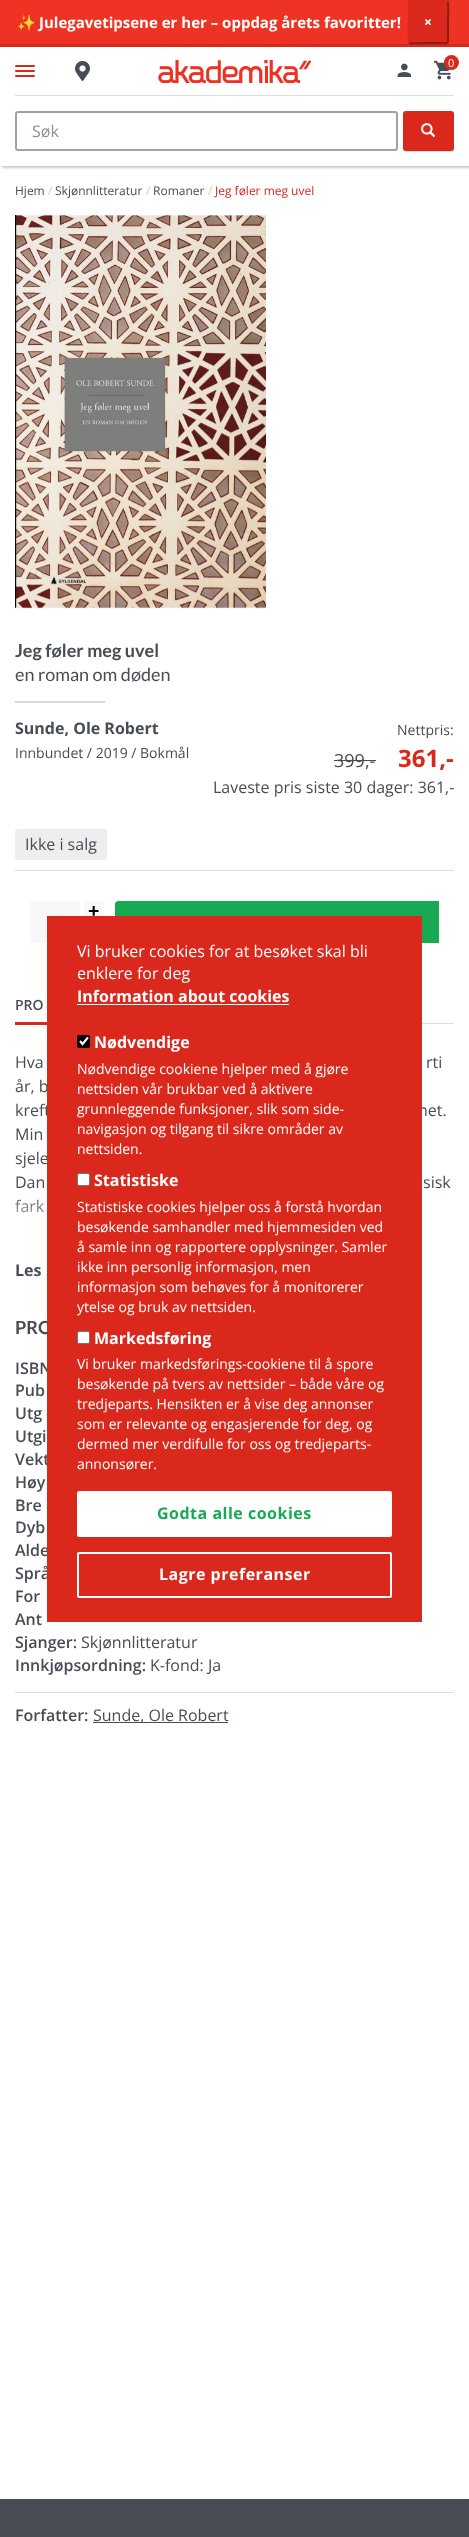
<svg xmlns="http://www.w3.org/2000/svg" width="469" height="2537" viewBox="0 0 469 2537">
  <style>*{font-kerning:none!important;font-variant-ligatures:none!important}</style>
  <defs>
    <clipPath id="clip1"><path d="M0 0h469v44H0z"/></clipPath>
    <linearGradient id="g1" gradientUnits="userSpaceOnUse" x1="235" y1="1192" x2="235" y2="1244"><stop offset="0" stop-color="#fff"/><stop offset="0" stop-color="#fff" stop-opacity="0"/><stop offset="1" stop-color="#fff"/></linearGradient>
  </defs>
  <rect width="100%" height="100%" fill="#484c55"/>
  <path d="M0 166h469v2333H0z" fill="#fff"/>
  <path d="M2 44h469v124H2z" fill="#00000033" filter="blur(1px)"/>
  <path d="M0 0h469v44H0z" fill="#ee3224"/>
  <path d="M0 47h469v119H0z" fill="#fff"/>
  <path d="M0 44h469v3H0z" fill="#da291c"/>
  <rect x="408" y="1" width="41" height="44" rx="3" fill="#00000026" filter="blur(0.5px)"/>
  <rect x="408" width="41" height="44" rx="3" fill="#da291c"/>
  <g clip-path="url(#clip1)">
    <path d="M447.5 1.5C449 3 448 19 448 22V34.5C448 44 449.5 43 440 43H428.5C425.5 43 411 44 409.5 42.5" fill="none" stroke="#911b13" stroke-width="2"/>
  </g>
  <path d="M409.5 42.5C408 41 409 25 409 22V9.5C409 0 407.5 1 417 1H428.5C431.5 1 446 0 447.5 1.5" fill="none" stroke="#da291c" stroke-width="2"/>
  <rect x="15" y="70" width="20" height="2" rx="1" fill="#da291c"/>
  <rect x="15" y="65" width="20" height="2" rx="1" fill="#da291c"/>
  <rect x="15" y="75" width="20" height="2" rx="1" fill="#da291c"/>
  <image x="158" y="60" width="153" height="23" href="img/1.png"/>
  <image x="75" y="61" width="15" height="20" href="img/2.png"/>
  <image x="397" y="63" width="15" height="14" href="img/3.png"/>
  <image x="434" y="60" width="17" height="20" href="img/4.png"/>
  <circle cx="451.5" cy="62.5" r="7.5" fill="#da291c"/>
  <path d="M15 95h439v1H15z" fill="#dddee0"/>
  <rect x="16" y="112" width="381" height="38" rx="2" fill="none" stroke="#9da2a6" stroke-width="2"/>
  <rect x="403" y="112" width="51" height="40" rx="3" fill="#00000026" filter="blur(0.5px)"/>
  <rect x="403" y="111" width="51" height="40" rx="3" fill="#da291c"/>
  <image x="421" y="123" width="15" height="14" href="img/5.png"/>
  <image x="15" y="215" width="251" height="394" href="img/6.png"/>
  <path d="M15 701h90v2H15z" fill="#d8d8d8"/>
  <path d="M334 760h42v1H334z" fill="#484c55"/>
  <rect x="15" y="829" width="92" height="31" rx="3" fill="#eee"/>
  <path d="M15 870h439v1H15z" fill="#dddee0"/>
  <rect x="30" y="901" width="50" height="42" rx="3" fill="#f8f8f8"/>
  <rect x="84" y="901" width="20" height="20" rx="3" fill="#f8f8f8"/>
  <path d="M118 901H439V943H118C116.5 943 115 941.5 115 940V904C115 902.5 116.5 901 118 901Z" fill="#18aa53"/>
  <path d="M15 1022h32v3H15z" fill="#da291c"/>
  <path d="M422 1023h32v1H422z" fill="#dddee0"/>
  <path d="M15 1692h439v1H15z" fill="#dddee0"/>
  <path d="M93 1722h135v1H93z" fill="#484c55"/>
  <text x="17" y="28" font-family="Noto Color Emoji" font-size="15" font-weight="bold" fill="#fff">✨</text>
  <text x="39" y="28" font-family="Open Sans" font-size="15" font-weight="bold" fill="#fff">Julegavetipsene er her – oppdag årets favoritter!</text>
  <text x="424" y="27" font-family="Open Sans" font-size="14" font-weight="bold" letter-spacing="1" fill="#fff">×</text>
  <text x="448" y="67" font-family="Open Sans" font-size="11" fill="#fff">0</text>
  <text x="32" y="137" font-family="Open Sans" font-size="16" fill="#8d9097">Søk</text>
  <text x="15" y="195" font-family="Open Sans" font-size="12" fill="#484c55">Hjem</text>
  <text x="48" y="195" font-family="Open Sans" font-size="12" fill="#ccc">/</text>
  <text x="55" y="195" font-family="Open Sans" font-size="12" fill="#484c55">Skjønnlitteratur</text>
  <text x="146" y="195" font-family="Open Sans" font-size="12" fill="#ccc">/</text>
  <text x="153" y="195" font-family="Open Sans" font-size="12" fill="#484c55">Romaner</text>
  <text x="208" y="195" font-family="Open Sans" font-size="12" fill="#ccc">/</text>
  <text x="215" y="195" font-family="Open Sans" font-size="12" fill="#da291c">Jeg føler meg uvel</text>
  <text x="15" y="657" font-family="Lato" font-size="18" font-weight="bold" fill="#484c55">Jeg føler meg uvel</text>
  <text x="15" y="681" font-family="Lato" font-size="18" fill="#484c55">en roman om døden</text>
  <text x="15" y="734" font-family="Open Sans" font-size="16" font-weight="bold" fill="#484c55">Sunde, Ole Robert</text>
  <g font-family="Open Sans" font-size="14" fill="#484c55">
    <text x="15" y="758">Innbundet / 2019 / Bokmål</text>
    <text x="397" y="735">Nettpris:</text>
  </g>
  <text x="334" y="767" font-family="Open Sans" font-size="18" fill="#484c55">399,-</text>
  <text x="398" y="767" font-family="Open Sans" font-size="24" font-weight="bold" fill="#da291c">361,-</text>
  <g font-family="Open Sans" font-size="16" fill="#484c55">
    <text x="213" y="793">Laveste pris siste 30 dager: 361,-</text>
    <text x="25" y="850">Ikke i salg</text>
  </g>
  <text x="88" y="918" font-family="Open Sans" font-size="20" font-weight="bold" fill="#000">+</text>
  <text x="15" y="1010" font-family="Open Sans" font-size="14" font-weight="600" fill="#484c55">PRO</text>
  <g font-family="Open Sans" font-size="16" fill="#484c55">
    <text x="15" y="1068">Hva</text>
    <text x="426" y="1068">rti</text>
    <text x="15" y="1092">år, b</text>
    <text x="15" y="1116">kreft</text>
    <text x="418" y="1116">net.</text>
    <text x="15" y="1140">Min</text>
    <text x="15" y="1164">sjele</text>
    <text x="15" y="1188">Dan</text>
    <text x="423" y="1188">sisk</text>
    <text x="15" y="1212">fark</text>
  </g>
  <path d="M15 1199h29v14H15z" fill="url(#g1)"/>
  <text x="15" y="1276" font-family="Open Sans" font-size="16" font-weight="bold" fill="#484c55">Les</text>
  <text x="15" y="1334" font-family="Lato" font-size="18" font-weight="bold" fill="#484c55">PRO</text>
  <g font-family="Open Sans" font-size="16" font-weight="600" fill="#484c55">
    <text x="15" y="1374">ISBN</text>
    <text x="15" y="1396">Pub</text>
    <text x="15" y="1419">Utg</text>
    <text x="15" y="1442">Utgi</text>
    <text x="15" y="1465">Vekt</text>
    <text x="15" y="1488">Høy</text>
    <text x="15" y="1511">Bre</text>
    <text x="15" y="1533">Dyb</text>
    <text x="15" y="1556">Alde</text>
    <text x="15" y="1579">Språ</text>
    <text x="15" y="1602">For</text>
    <text x="15" y="1625">Ant</text>
    <text x="15" y="1648">Sjanger:</text>
  </g>
  <text x="81" y="1648" font-family="Open Sans" font-size="16" fill="#484c55">Skjønnlitteratur</text>
  <text x="15" y="1671" font-family="Open Sans" font-size="16" font-weight="600" fill="#484c55">Innkjøpsordning:</text>
  <text x="150" y="1671" font-family="Open Sans" font-size="16" fill="#484c55">K-fond: Ja</text>
  <text x="15" y="1721" font-family="Open Sans" font-size="16" font-weight="600" fill="#484c55">Forfatter:</text>
  <text x="93" y="1721" font-family="Open Sans" font-size="16" fill="#484c55">Sunde, Ole Robert</text>
  <path d="M47 916h375v706H47z" fill="#da291c"/>
  <g font-family="Open Sans" font-size="16" fill="#fff">
    <text x="77" y="957">Vi bruker cookies for at besøket skal bli</text>
    <text x="77" y="979">enklere for deg</text>
  </g>
  <text x="77" y="1002" font-family="Open Sans" font-size="16" font-weight="bold" fill="#fff">Information about cookies</text>
  <path d="M77 1004h212v1H77z" fill="#fff"/>
  <rect x="77" y="1035" width="13" height="13" rx="2" fill="#000"/>
  <path d="M80 1041L82.5 1044L88 1037.5" fill="none" stroke="#fff" stroke-width="2.1"/>
  <text x="94" y="1048" font-family="Open Sans" font-size="16" font-weight="bold" fill="#fff">Nødvendige</text>
  <g font-family="Open Sans" font-size="14" fill="#fff">
    <text x="77" y="1074">Nødvendige cookiene hjelper med å gjøre</text>
    <text x="77" y="1094">nettsiden vår brukbar ved å aktivere</text>
    <text x="77" y="1114">grunnleggende funksjoner, slik som side-</text>
    <text x="77" y="1134">navigasjon og tilgang til sikre områder av</text>
    <text x="77" y="1154">nettsiden.</text>
  </g>
  <rect x="77.5" y="1173.5" width="12" height="12" rx="1.5" fill="#fff" stroke="#767676"/>
  <text x="94" y="1186" font-family="Open Sans" font-size="16" font-weight="bold" fill="#fff">Statistiske</text>
  <g font-family="Open Sans" font-size="14" fill="#fff">
    <text x="77" y="1212">Statistiske cookies hjelper oss å forstå hvordan</text>
    <text x="77" y="1232">besøkende samhandler med hjemmesiden ved</text>
    <text x="77" y="1252">å samle inn og rapportere opplysninger. Samler</text>
    <text x="77" y="1272">ikke inn personlig informasjon, men</text>
    <text x="77" y="1292">informasjon som behøves for å monitorerer</text>
    <text x="77" y="1312">ytelse og bruk av nettsiden.</text>
  </g>
  <rect x="77.5" y="1331.5" width="12" height="12" rx="1.5" fill="#fff" stroke="#767676"/>
  <text x="94" y="1344" font-family="Open Sans" font-size="16" font-weight="bold" fill="#fff">Markedsføring</text>
  <g font-family="Open Sans" font-size="14" fill="#fff">
    <text x="77" y="1369">Vi bruker markedsførings-cookiene til å spore</text>
    <text x="77" y="1389">besøkende på tvers av nettsider – både våre og</text>
    <text x="77" y="1409">tredjeparts. Hensikten er å vise deg annonser</text>
    <text x="77" y="1429">som er relevante og engasjerende for deg, og</text>
    <text x="77" y="1449">dermed mer verdifulle for oss og tredjeparts-</text>
    <text x="77" y="1469">annonsører.</text>
  </g>
  <rect x="78" y="1492" width="313" height="44" rx="1" fill="#fff" stroke="#fff" stroke-width="2"/>
  <text x="157" y="1519" font-family="Open Sans" font-size="16" font-weight="bold" letter-spacing="0.5" fill="#18aa53">Godta alle cookies</text>
  <rect x="78" y="1553" width="313" height="44" rx="1" fill="none" stroke="#fff" stroke-width="2"/>
  <text x="159" y="1580" font-family="Open Sans" font-size="16" font-weight="bold" letter-spacing="0.5" fill="#fff">Lagre preferanser</text>
</svg>
